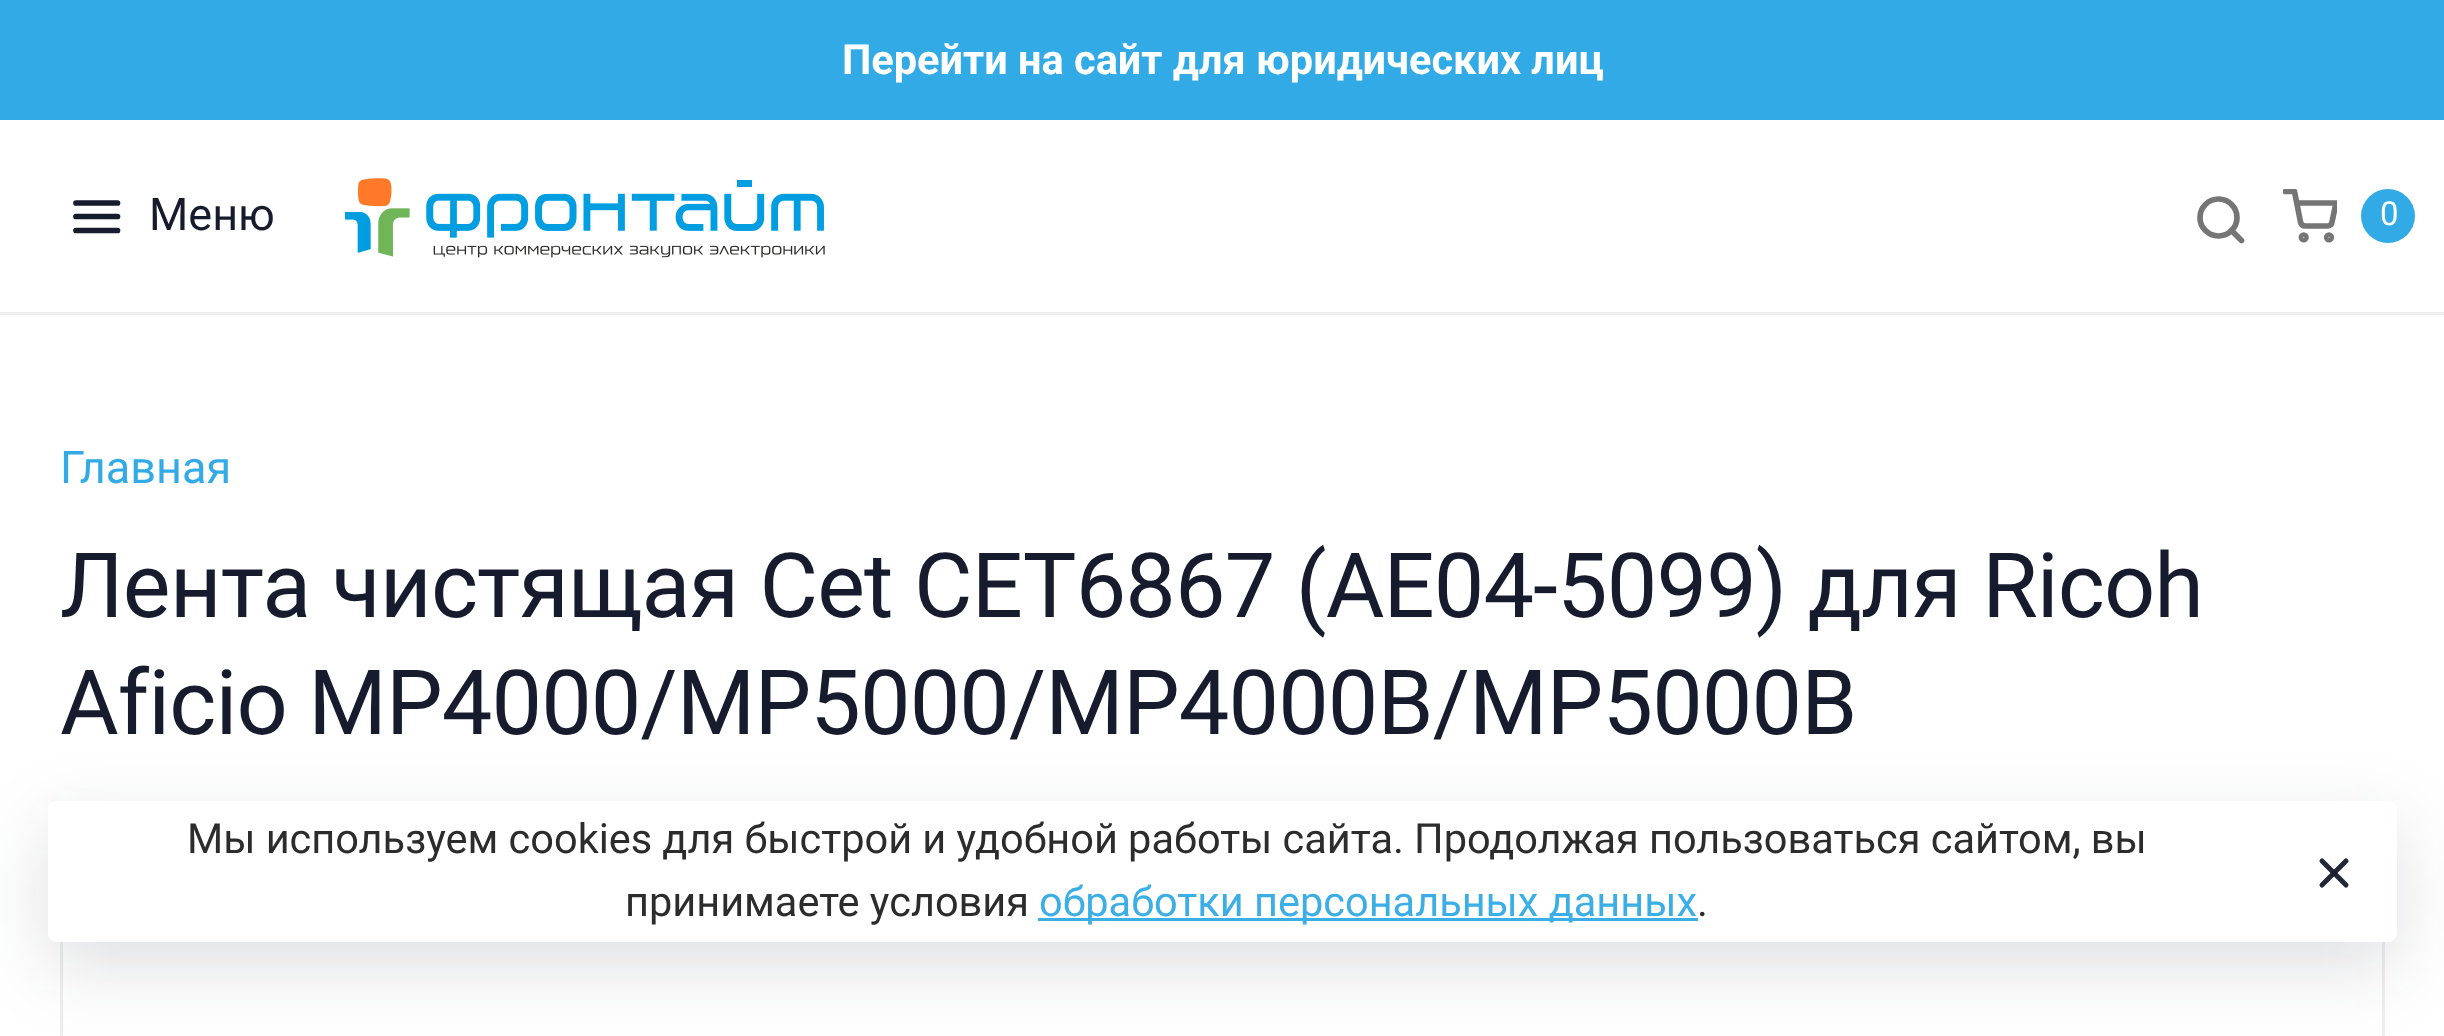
<svg xmlns="http://www.w3.org/2000/svg" width="2444" height="1036" viewBox="0 0 2444 1036">
  <defs>
    <clipPath id="clip1"><path d="M2283 189h54v57H2283z"/></clipPath>
    <clipPath id="clip2"><path d="M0 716H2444V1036H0ZM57 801H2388C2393 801 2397 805 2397 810V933C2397 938 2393 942 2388 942H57C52 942 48 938 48 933V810C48 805 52 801 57 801Z" clip-rule="evenodd"/></clipPath>
  </defs>
  <rect width="100%" height="100%" fill="#fff"/>
  <path d="M0 0h2444v120H0z" fill="#32aae5"/>
  <path d="M0 312h2444v3H0z" fill="#eee"/>
  <path d="M76 216.5H117.5M76 203H117.5M76 230.5H117.5" fill="none" stroke="#161c2d" stroke-width="5.7" stroke-linecap="round" stroke-linejoin="round"/>
  <image x="345" y="178" width="480" height="80" href="img/1.png"/>
  <circle cx="2218.5" cy="217.5" r="18.5" fill="none" stroke="#757575" stroke-width="5.7"/>
  <path d="M2241.5 240.5L2231.5 230.5" fill="none" stroke="#757575" stroke-width="5.7" stroke-linecap="round" stroke-linejoin="round"/>
  <g clip-path="url(#clip1)">
    <path d="M2285.5 191.5H2294.5L2300.5 222C2301 224.5 2303 226 2305.5 226H2327.5C2330 226 2332 224.5 2332 222L2336 203H2297" fill="none" stroke="#757575" stroke-width="5.7" stroke-linecap="round" stroke-linejoin="round"/>
  </g>
  <circle cx="2303.7" cy="237.3" r="2.3" fill="none" stroke="#757575" stroke-width="5.7"/>
  <circle cx="2329" cy="237.3" r="2.3" fill="none" stroke="#757575" stroke-width="5.7"/>
  <circle cx="2388" cy="216" r="27" fill="#32aae5"/>
  <rect x="61.5" y="883.5" width="2322" height="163" rx="7.5" fill="none" stroke="#eee" stroke-width="3"/>
  <g clip-path="url(#clip2)">
    <rect x="48" y="825" width="2349" height="141" rx="9" fill="#161c2d24" filter="blur(36px)"/>
  </g>
  <rect x="48" y="801" width="2349" height="141" rx="9" fill="#fffffff2"/>
  <path d="M1038 918h660v3H1038z" fill="#3caee6"/>
  <path d="M2346 861L2322 885" fill="none" stroke="#222737" stroke-width="5" stroke-linecap="round" stroke-linejoin="round"/>
  <path d="M2322 861L2346 885" fill="none" stroke="#161c2df2" stroke-width="5" stroke-linecap="round" stroke-linejoin="round"/>
  <text x="842" y="74" font-family="Roboto" font-size="41.5" font-weight="bold" fill="#fff">Перейти на сайт для юридических лиц</text>
  <text x="149" y="230" font-family="Roboto" font-size="45" fill="#161c2d">Меню</text>
  <text x="2380" y="225" font-family="Roboto" font-size="33" fill="#fff">0</text>
  <text x="60" y="483" font-family="Roboto" font-size="45" fill="#32aae5">Главная</text>
  <g font-family="Roboto" font-size="90" letter-spacing="-0.9" fill="#161c2d">
    <text x="60" y="617">Лента чистящая Cet CET6867 (AE04-5099) для Ricoh</text>
    <text x="60" y="734">Aficio MP4000/MP5000/MP4000B/MP5000B</text>
  </g>
  <g font-family="Roboto" font-size="41.5" fill="#2c2c2c">
    <text x="187" y="853" word-spacing="-0.1">Мы используем cookies для быстрой и удобной работы сайта. Продолжая пользоваться сайтом, вы</text>
    <text x="625" y="916">принимаете условия</text>
  </g>
  <text x="1039" y="916" font-family="Roboto" font-size="41.5" fill="#3caee6">обработки персональных данных</text>
  <text x="1697" y="916" font-family="Roboto" font-size="41.5" fill="#2c2c2c">.</text>
</svg>
